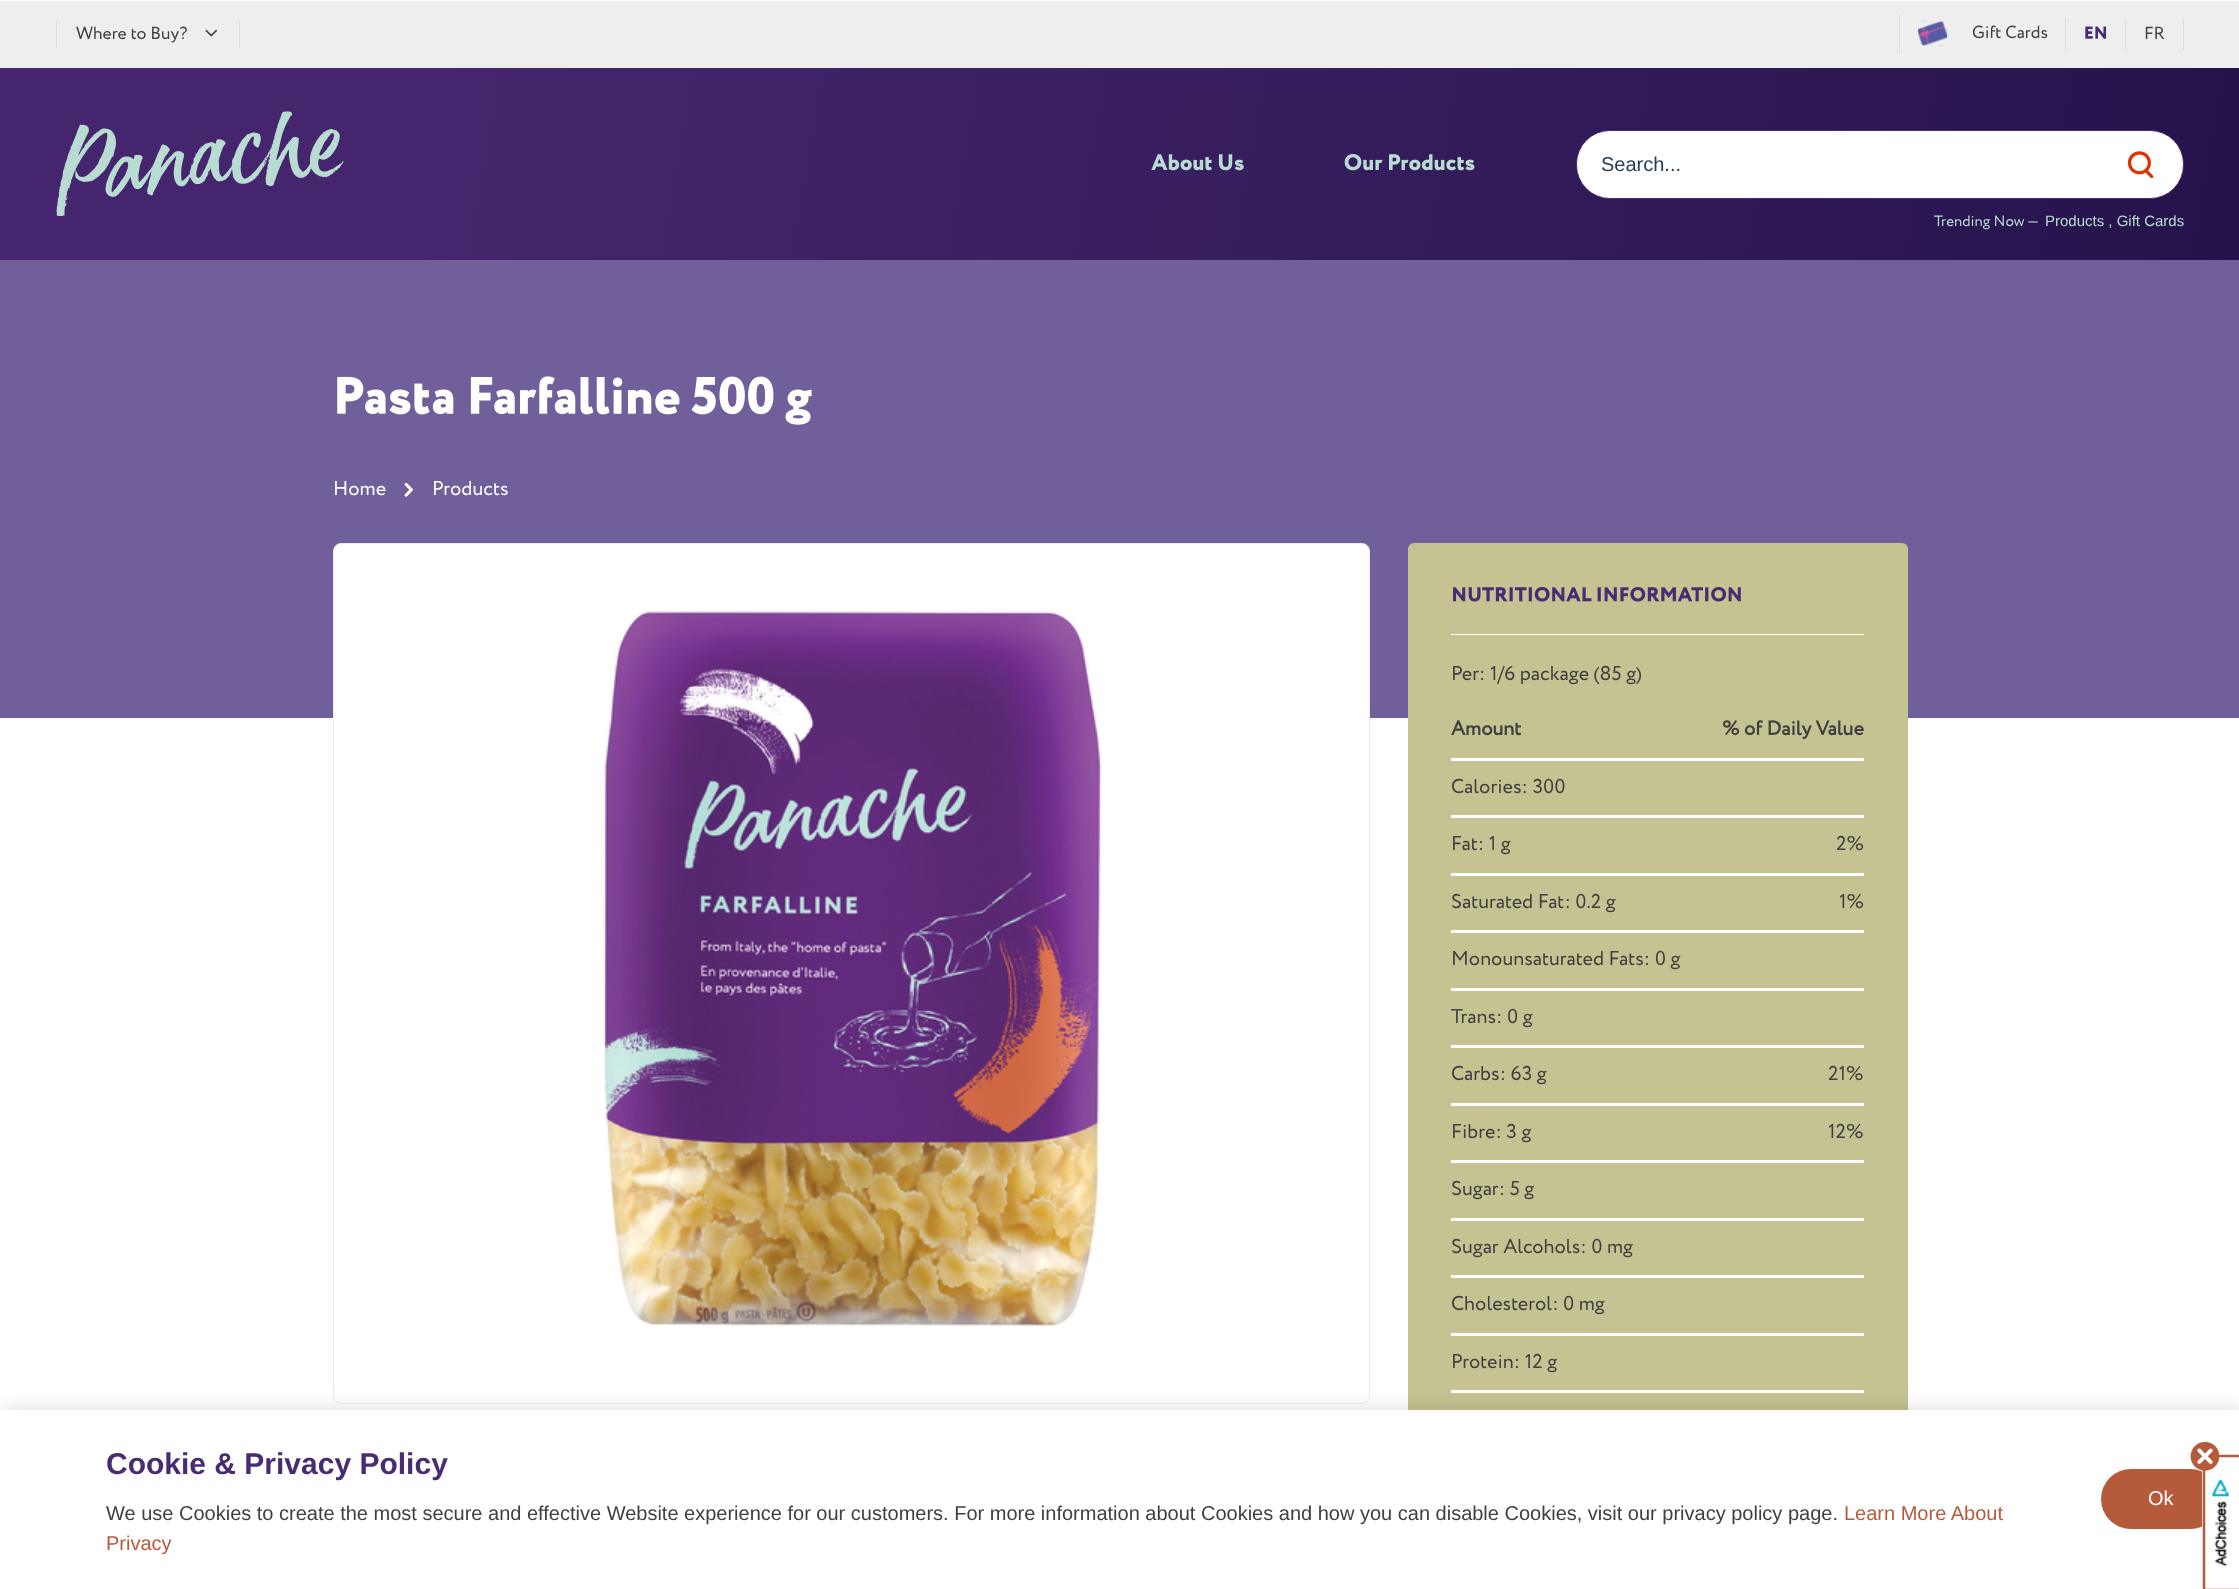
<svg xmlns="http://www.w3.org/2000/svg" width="2239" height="1589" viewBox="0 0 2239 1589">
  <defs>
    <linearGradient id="g1" gradientUnits="userSpaceOnUse" x1="17" y1="-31" x2="2223" y2="358"><stop offset="0.2" stop-color="#45266e"/><stop offset="1" stop-color="#25134b"/></linearGradient>
  </defs>
  <rect width="100%" height="100%" fill="#fff"/>
  <path d="M0 1h2239v67H0z" fill="#eee"/>
  <path d="M239 21h1v27H239z" fill="#ddd"/>
  <path d="M56 21h1v27H56z" fill="#ddd"/>
  <image x="205" y="29" width="13" height="8" href="img/1.png"/>
  <path d="M1899 14h1v40H1899z" fill="#ddd"/>
  <image x="1918" y="21" width="30" height="25" href="img/2.png"/>
  <path d="M2065 18h1v32H2065z" fill="#ddd"/>
  <image x="2085" y="26" width="22" height="13" href="img/3.png"/>
  <path d="M2183 18h1v32H2183z" fill="#ddd"/>
  <path d="M2125 18h1v32H2125z" fill="#ddd"/>
  <path d="M0 68h2239v192H0z" fill="url(#g1)"/>
  <image x="56" y="111" width="288" height="105" href="img/4.png"/>
  <image x="1151" y="154" width="93" height="17" href="img/5.png"/>
  <image x="1344" y="154" width="131" height="17" href="img/6.png"/>
  <rect x="1576.5" y="130.5" width="607" height="68" rx="33.5" fill="#fff" stroke="#482b73"/>
  <image x="2127" y="151" width="27" height="28" href="img/7.png"/>
  <path d="M0 260h2239v458H0z" fill="#705f9a"/>
  <image x="337" y="376" width="475" height="49" href="img/8.png"/>
  <image x="404" y="482" width="9" height="15" href="img/9.png"/>
  <rect x="333.5" y="543.5" width="1036" height="860" rx="7.5" fill="#fff" stroke="#e9ecef"/>
  <image x="604" y="609" width="497" height="717" href="img/10.png"/>
  <rect x="1408" y="543" width="500" height="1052" rx="6" fill="#c6c392"/>
  <image x="1453" y="587" width="288" height="15" href="img/11.png"/>
  <path d="M1451 634h413v1H1451z" fill="#fff"/>
  <path d="M1451 758h413v3H1451z" fill="#fff"/>
  <path d="M1451 815h413v3H1451z" fill="#fff"/>
  <path d="M1451 873h413v3H1451z" fill="#fff"/>
  <path d="M1451 930h413v3H1451z" fill="#fff"/>
  <path d="M1451 988h413v3H1451z" fill="#fff"/>
  <path d="M1451 1045h413v3H1451z" fill="#fff"/>
  <path d="M1451 1103h413v3H1451z" fill="#fff"/>
  <path d="M1451 1160h413v3H1451z" fill="#fff"/>
  <path d="M1451 1218h413v3H1451z" fill="#fff"/>
  <path d="M1451 1275h413v3H1451z" fill="#fff"/>
  <path d="M1451 1333h413v3H1451z" fill="#fff"/>
  <path d="M1451 1390h413v3H1451z" fill="#fff"/>
  <path d="M3 1410h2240v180H3z" fill="#00000026" filter="blur(9.5px)"/>
  <path d="M0 1410h2239v179H0z" fill="#fff"/>
  <rect x="2101" y="1469" width="119" height="60" rx="30" fill="#b55b3b"/>
  <path d="M2202 1588V1459C2202 1457 2204 1455 2206 1455H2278C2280 1455 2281 1457 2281 1459V1588C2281 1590 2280 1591 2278 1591H2206C2204 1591 2202 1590 2202 1588Z" fill="#fff"/>
  <path d="M2204 1587.5V1459C2204 1457.5 2205 1456 2206 1456H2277.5C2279 1456 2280 1457.5 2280 1459V1587.5C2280 1589 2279 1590 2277.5 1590H2206C2205 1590 2204 1589 2204 1587.5Z" fill="none" stroke="#b55b3b" stroke-width="2.5"/>
  <image x="2190" y="1441" width="30" height="30" href="img/12.png"/>
  <image x="2212" y="1479" width="17" height="88" href="img/13.png"/>
  <g font-family="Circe" font-size="17.5" fill="#404040">
    <text x="76" y="39">Where to Buy?</text>
    <text x="1972" y="38">Gift Cards</text>
    <text x="2144" y="39">FR</text>
  </g>
  <text x="1601" y="171" font-family="Liberation Sans" font-size="20" fill="#2a4052">Search...</text>
  <text x="1934" y="226" font-family="Circe" font-size="15" fill="#b9dcd2">Trending Now —</text>
  <text x="2045" y="226" font-family="Liberation Sans" font-size="15" fill="#b9dcd2">Products , Gift Cards</text>
  <g font-family="Circe" font-size="20" fill="#fff">
    <text x="333" y="495">Home</text>
    <text x="432" y="495">Products</text>
  </g>
  <text x="1451" y="680" font-family="Circe" font-size="20" fill="#404040">Per: 1/6 package (85 g)</text>
  <g font-family="Circe" font-size="20" font-weight="bold" fill="#404040">
    <text x="1451" y="735">Amount</text>
    <text x="1722" y="735">% of Daily Value</text>
  </g>
  <g font-family="Circe" font-size="20" fill="#404040">
    <text x="1451" y="793">Calories: 300</text>
    <text x="1451" y="850">Fat: 1 g</text>
    <text x="1836" y="850">2%</text>
    <text x="1451" y="908">Saturated Fat: 0.2 g</text>
    <text x="1839" y="908">1%</text>
    <text x="1451" y="965">Monounsaturated Fats: 0 g</text>
    <text x="1451" y="1023">Trans: 0 g</text>
    <text x="1451" y="1080">Carbs: 63 g</text>
    <text x="1828" y="1080">21%</text>
    <text x="1451" y="1138">Fibre: 3 g</text>
    <text x="1828" y="1138">12%</text>
    <text x="1451" y="1195">Sugar: 5 g</text>
    <text x="1451" y="1253">Sugar Alcohols: 0 mg</text>
    <text x="1451" y="1310">Cholesterol: 0 mg</text>
    <text x="1451" y="1368">Protein: 12 g</text>
  </g>
  <text x="106" y="1474" font-family="Liberation Sans" font-size="30" font-weight="bold" fill="#482b73">Cookie &amp; Privacy Policy</text>
  <text x="106" y="1520" font-family="Liberation Sans" font-size="20" fill="#404040">We use Cookies to create the most secure and effective Website experience for our customers. For more information about Cookies and how you can disable Cookies, visit our privacy policy page.</text>
  <g font-family="Liberation Sans" font-size="20" fill="#b55b3b">
    <text x="1844" y="1520">Learn More About</text>
    <text x="106" y="1550">Privacy</text>
  </g>
  <text x="2148" y="1505" font-family="Liberation Sans" font-size="20" fill="#fff">Ok</text>
</svg>
